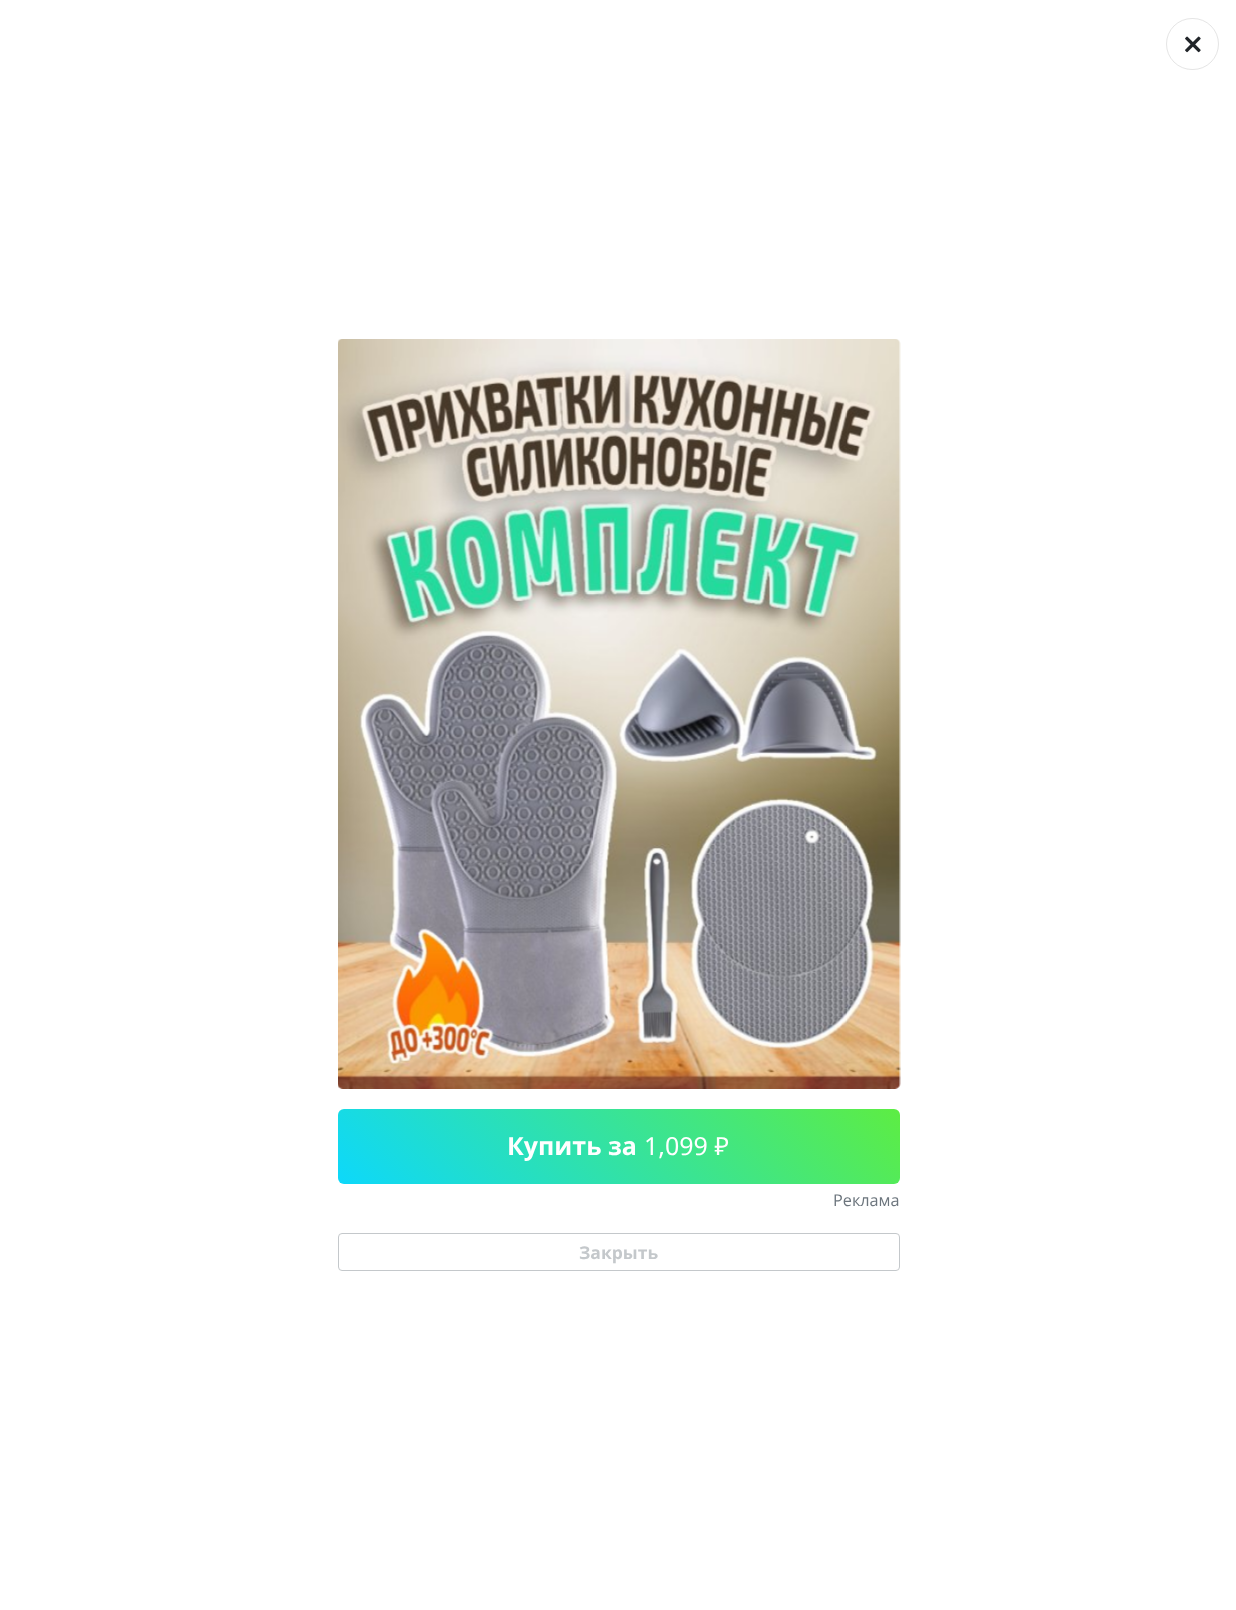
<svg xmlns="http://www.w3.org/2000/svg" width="1236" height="1610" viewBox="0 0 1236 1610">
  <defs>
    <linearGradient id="g1" gradientUnits="userSpaceOnUse" x1="459" y1="1306" x2="778" y2="987"><stop offset="0" stop-color="#0dd8fb"/><stop offset="1" stop-color="#5ded43"/></linearGradient>
  </defs>
  <rect width="100%" height="100%" fill="#fff"/>
  <rect x="1166.5" y="18.5" width="52" height="51" rx="25.5" fill="none" stroke="#e5e5e5"/>
  <image x="1185" y="36" width="16" height="17" href="img/1.png"/>
  <image x="338" y="339" width="563" height="750" href="img/2.png"/>
  <rect x="338" y="1109" width="562" height="75" rx="6" fill="url(#g1)"/>
  <rect x="338.5" y="1233.5" width="561" height="37" rx="3.5" fill="none" stroke="#c4c8cb"/>
  <text x="507" y="1155" font-family="Open Sans" font-size="25" font-weight="bold" fill="#fff">Купить за</text>
  <text x="644" y="1155" font-family="Noto Sans" font-size="25" fill="#fff">1,099 ₽</text>
  <text x="833" y="1206" font-family="Open Sans" font-size="16.25" fill="#6c757d">Реклама</text>
  <text x="579" y="1259" font-family="Open Sans" font-size="17.5" font-weight="bold" fill="#c4c8cb">Закрыть</text>
</svg>
